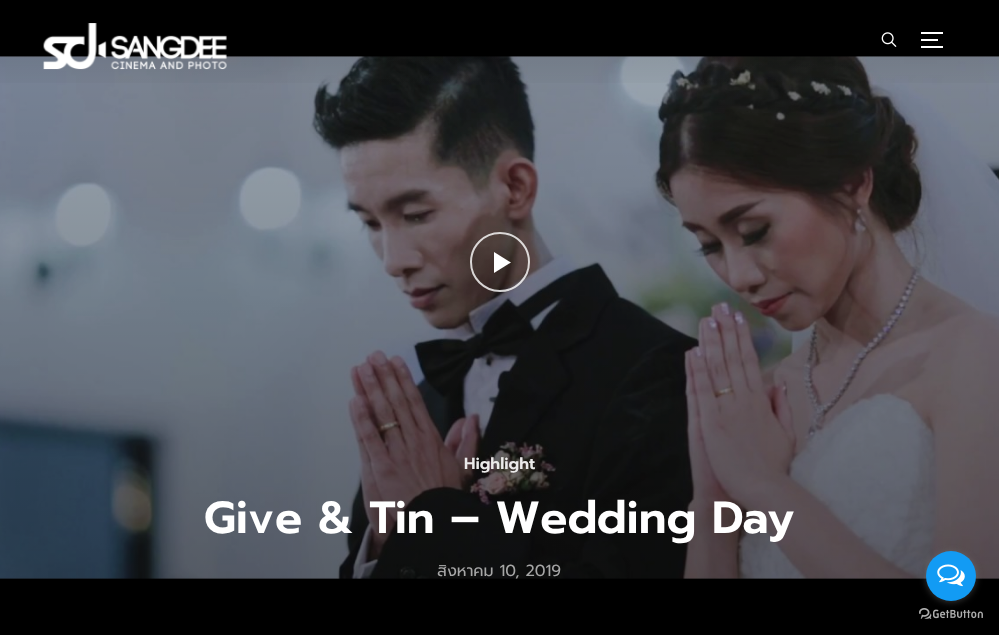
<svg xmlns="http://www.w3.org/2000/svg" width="999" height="635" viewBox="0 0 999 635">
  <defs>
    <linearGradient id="g1" gradientUnits="userSpaceOnUse" x1="499" y1="0" x2="500" y2="635"><stop offset="0" stop-color="#000" stop-opacity="0.08"/><stop offset="1" stop-color="#000" stop-opacity="0.4"/></linearGradient>
    <linearGradient id="g2" gradientUnits="userSpaceOnUse" x1="500" y1="0" x2="500" y2="93"><stop offset="0.01" stop-color="#000" stop-opacity="0.2"/><stop offset="1" stop-color="#000" stop-opacity="0"/></linearGradient>
  </defs>
  <rect width="100%" height="100%" fill="#000"/>
  <image x="0" y="56" width="999" height="523" href="img/3.png"/>
  <path d="M0 56h999v523H0z" fill="url(#g1)"/>
  <path d="M0 56h999v27H0z" fill="url(#g2)"/>
  <image x="43" y="23" width="184" height="47" href="img/1.png"/>
  <image x="881" y="32" width="16" height="15" href="img/2.png"/>
  <path d="M921 32h22v2H921z" fill="#fff"/>
  <path d="M921 39h17v2H921z" fill="#fff"/>
  <path d="M921 46h22v2H921z" fill="#fff"/>
  <circle cx="500" cy="262" r="29" fill="none" stroke="#ffffffcc" stroke-width="2"/>
  <path d="M494 252L511 262.5L494 273Z" fill="#fff"/>
  <image x="919" y="608" width="64" height="11" href="img/5.png"/>
  <rect x="926" y="552" width="50" height="50" rx="25" fill="#88888866" filter="blur(3.5px)"/>
  <circle cx="951" cy="576" r="25" fill="#129bf4"/>
  <image x="937" y="564" width="28" height="23" href="img/4.png"/>
  <text x="464" y="469" font-family="Prompt" font-size="16" font-weight="600" fill="#ebeaea">Highlight</text>
  <text x="204" y="533" font-family="Prompt" font-size="45" font-weight="600" fill="#fff">Give &amp; Tin – Wedding Day</text>
  <text x="437" y="576" font-family="Prompt" font-size="16" fill="#a6a6a6">สิงหาคม 10, 2019</text>
</svg>
